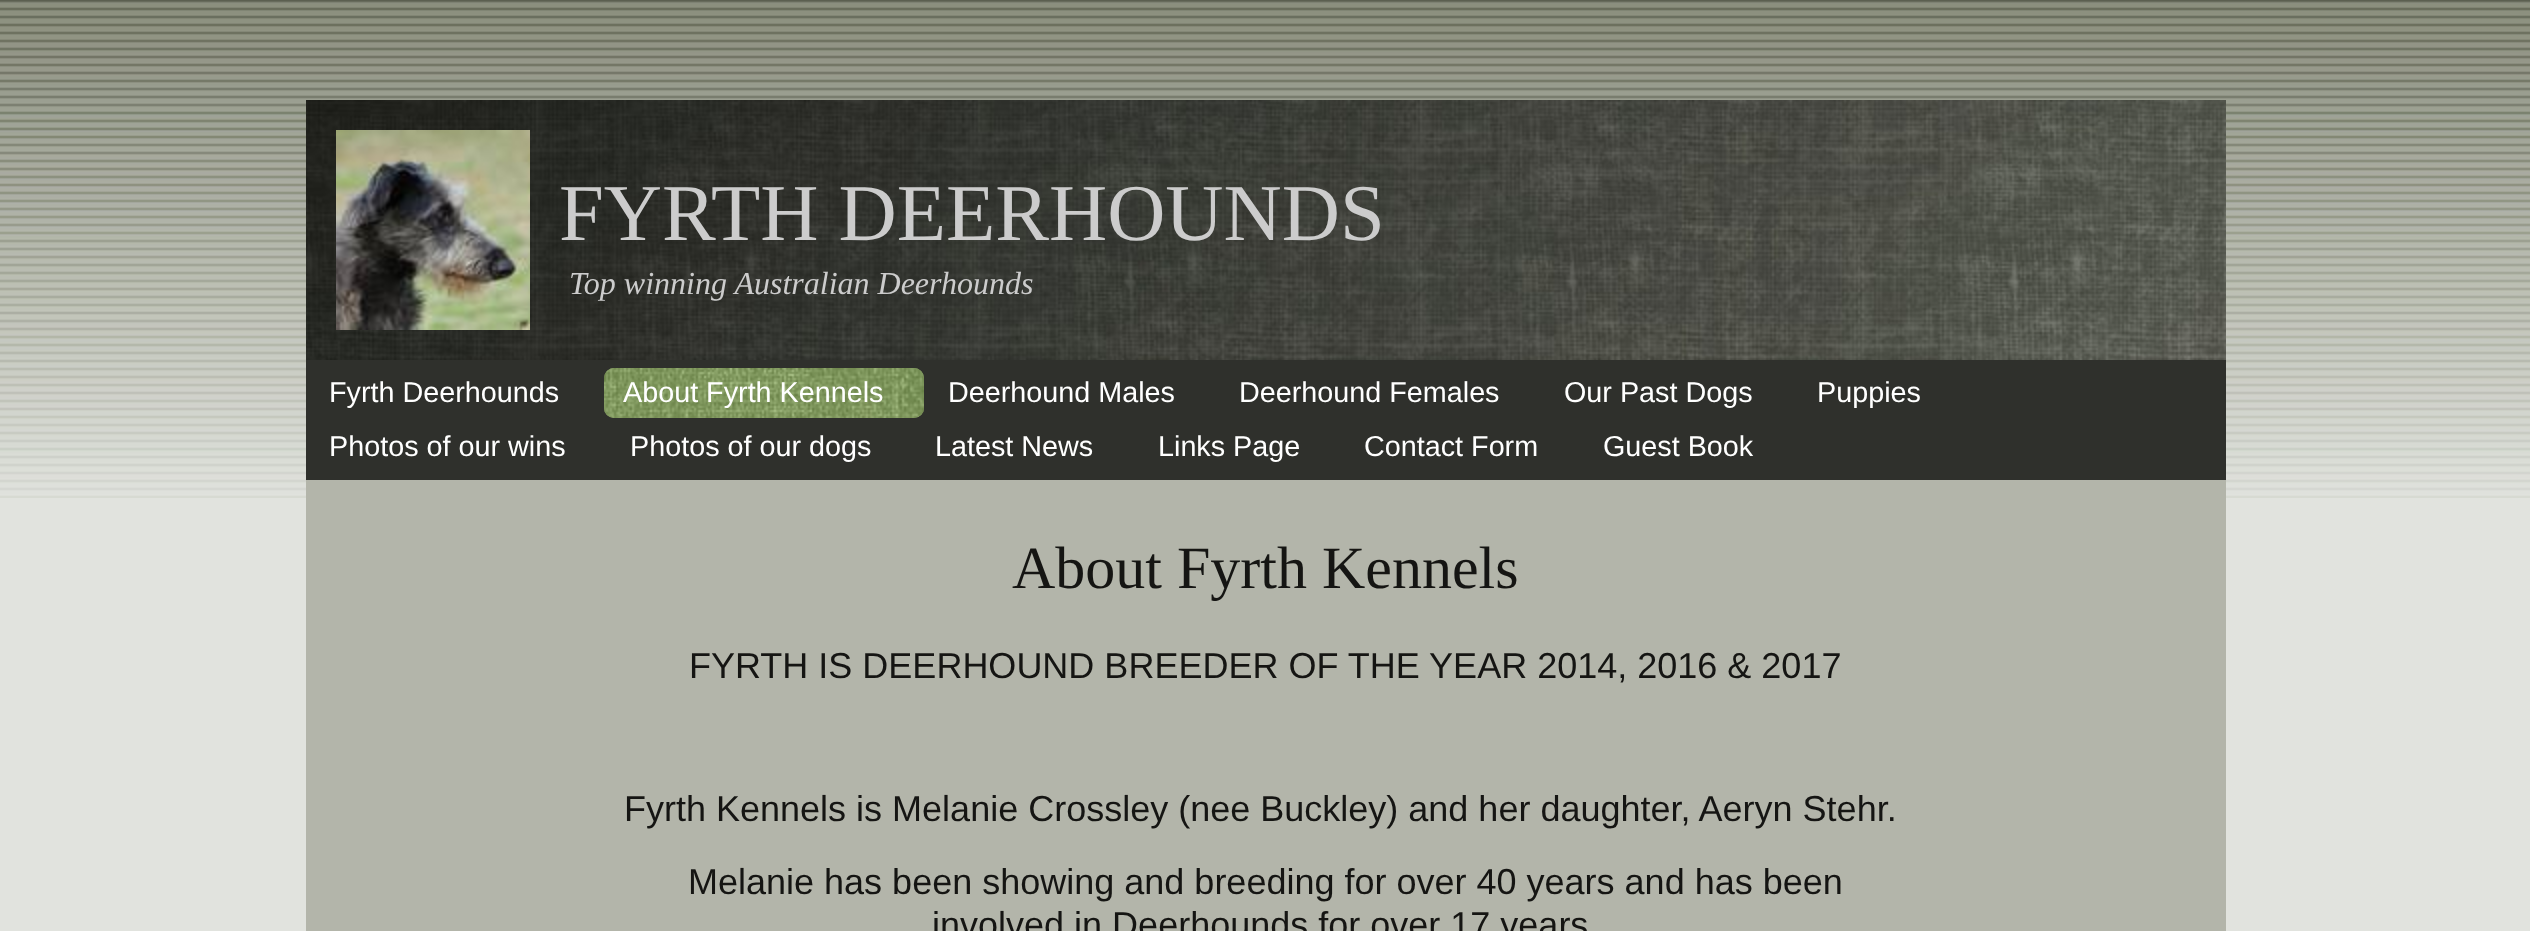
<svg xmlns="http://www.w3.org/2000/svg" width="2530" height="931" viewBox="0 0 2530 931">
  <rect width="100%" height="100%" fill="#e1e3de"/>
  <image x="0" y="0" width="2530" height="498" href="img/1.png"/>
  <image x="306" y="100" width="1920" height="260" href="img/2.png"/>
  <image x="336" y="130" width="194" height="200" href="img/3.png"/>
  <path d="M306 360h1920v120H306z" fill="#2f302c"/>
  <rect x="604" y="368" width="320" height="50" rx="10" fill="#8da26a"/>
  <image x="604" y="368" width="320" height="50" href="img/4.png"/>
  <path d="M306 480h1920v451H306z" fill="#b3b5aa"/>
  <text x="559" y="240" font-family="Liberation Serif" font-size="80.6" fill="#ccc">FYRTH DEERHOUNDS</text>
  <text x="569" y="294" font-family="Liberation Serif" font-size="32" font-style="italic" fill="#ccc">Top winning Australian Deerhounds</text>
  <g font-family="Liberation Sans" font-size="28.75" fill="#fff">
    <text x="329" y="402">Fyrth Deerhounds</text>
    <text x="623" y="402">About Fyrth Kennels</text>
    <text x="948" y="402">Deerhound Males</text>
    <text x="1239" y="402">Deerhound Females</text>
    <text x="1564" y="402">Our Past Dogs</text>
    <text x="1817" y="402">Puppies</text>
    <text x="329" y="456">Photos of our wins</text>
    <text x="630" y="456">Photos of our dogs</text>
    <text x="935" y="456">Latest News</text>
    <text x="1158" y="456">Links Page</text>
    <text x="1364" y="456">Contact Form</text>
    <text x="1603" y="456">Guest Book</text>
  </g>
  <text x="1012" y="588" font-family="Liberation Serif" font-size="60" fill="#151513">About Fyrth Kennels</text>
  <g font-family="Liberation Sans" font-size="36" fill="#151513">
    <text x="689" y="678">FYRTH IS DEERHOUND BREEDER OF THE YEAR 2014, 2016 &amp; 2017</text>
    <text x="624" y="821">Fyrth Kennels is Melanie Crossley (nee Buckley) and her daughter, Aeryn Stehr.</text>
    <text x="688" y="894">Melanie has been showing and breeding for over 40 years and has been</text>
    <text x="932" y="937">involved in Deerhounds for over 17 years</text>
  </g>
</svg>
